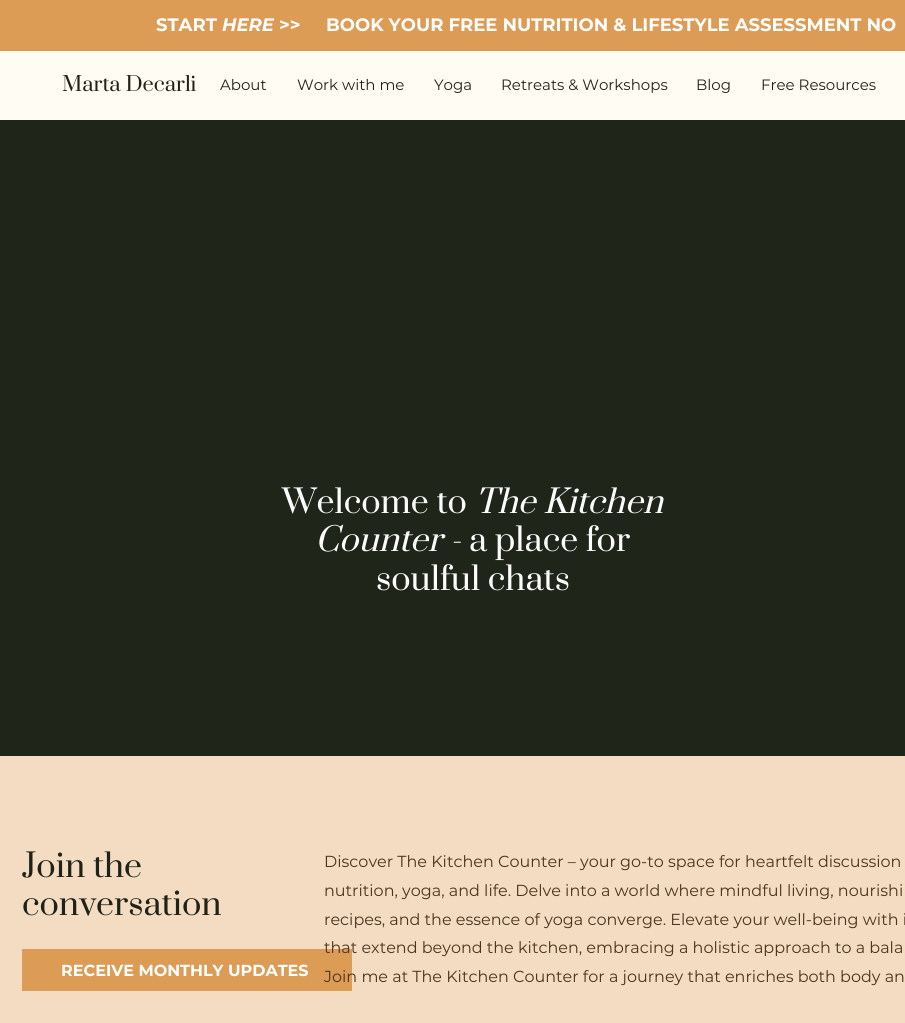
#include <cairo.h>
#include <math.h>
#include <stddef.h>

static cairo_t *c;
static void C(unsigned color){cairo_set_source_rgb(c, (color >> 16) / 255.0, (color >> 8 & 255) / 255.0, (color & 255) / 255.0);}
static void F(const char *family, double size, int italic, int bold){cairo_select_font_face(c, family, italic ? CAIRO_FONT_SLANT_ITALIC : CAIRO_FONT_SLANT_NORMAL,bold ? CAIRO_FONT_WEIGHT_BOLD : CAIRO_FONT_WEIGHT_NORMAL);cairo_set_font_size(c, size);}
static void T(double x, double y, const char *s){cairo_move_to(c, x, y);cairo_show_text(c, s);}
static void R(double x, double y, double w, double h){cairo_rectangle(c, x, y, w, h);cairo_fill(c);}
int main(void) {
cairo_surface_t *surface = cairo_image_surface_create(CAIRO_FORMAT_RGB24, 905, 1023);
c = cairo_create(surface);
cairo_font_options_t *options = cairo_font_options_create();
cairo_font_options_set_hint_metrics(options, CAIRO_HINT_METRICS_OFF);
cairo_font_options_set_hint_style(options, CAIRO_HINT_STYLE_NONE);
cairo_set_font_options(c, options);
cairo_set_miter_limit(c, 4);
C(0xdc9c56);
cairo_paint(c);
F("Montserrat",18,0,1);
C(0xffffff);
T(156,31,"START");
F("Montserrat",18,1,1);
T(222,31,"HERE");
F("Montserrat",18,0,1);
T(279,31,">>     BOOK YOUR FREE NUTRITION & LIFESTYLE ASSESSMENT NO");
C(0xfffcf4);
R(0,51,905,69);
F("Prata",20,0,0);
C(0x202218);
T(62,91,"Marta Decarli");
F("Montserrat",15,0,0);
T(220,90,"About");
T(297,90,"Work with me");
T(434,90,"Yoga");
T(501,90,"Retreats & Workshops");
T(696,90,"Blog");
T(761,90,"Free Resources");
C(0x1f2619);
R(0,120,905,636);
F("Prata",32,0,0);
C(0xffffff);
T(282,513,"Welcome to");
F("Prata",32,1,0);
T(475,513,"The Kitchen");
T(315,551,"Counter -");
F("Prata",32,0,0);
T(469,551,"a place for");
T(376,590,"soulful chats");
C(0xf3dcc2);
R(0,756,905,267);
C(0x202218);
T(22,877,"Join the");
T(22,915,"conversation");
C(0xdc9c56);
R(22,949,330,42);
F("Montserrat",16,0,1);
C(0xffffff);
T(61,976,"RECEIVE MONTHLY UPDATES");
F("Montserrat",16,0,0);
C(0x49341d);
T(324,867,"Discover The Kitchen Counter – your go-to space for heartfelt discussion");
T(324,896,"nutrition, yoga, and life. Delve into a world where mindful living, nourishi");
T(324,925,"recipes, and the essence of yoga converge. Elevate your well-being with i");
T(324,953,"that extend beyond the kitchen, embracing a holistic approach to a bala");
T(324,982,"Join me at The Kitchen Counter for a journey that enriches both body an");
cairo_surface_write_to_png(surface, "o.png");
cairo_font_options_destroy(options);
cairo_destroy(c);
cairo_surface_destroy(surface);
return 0;
}
